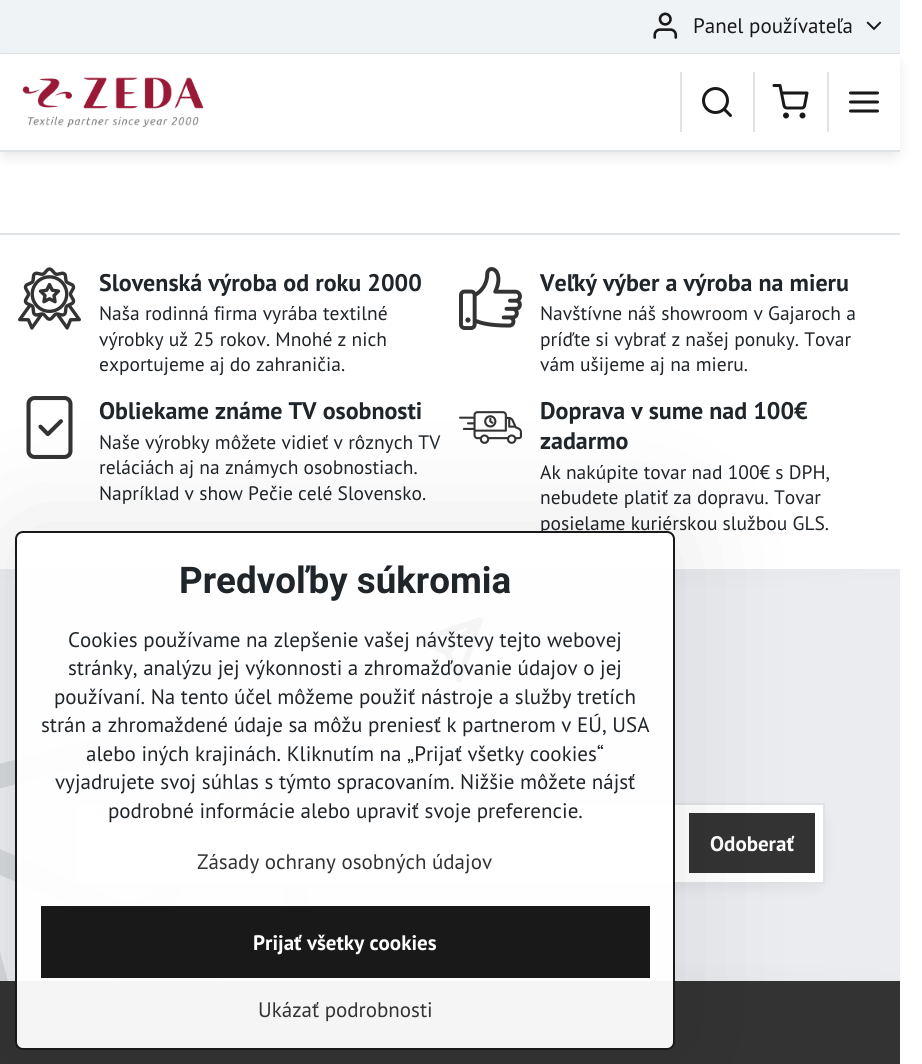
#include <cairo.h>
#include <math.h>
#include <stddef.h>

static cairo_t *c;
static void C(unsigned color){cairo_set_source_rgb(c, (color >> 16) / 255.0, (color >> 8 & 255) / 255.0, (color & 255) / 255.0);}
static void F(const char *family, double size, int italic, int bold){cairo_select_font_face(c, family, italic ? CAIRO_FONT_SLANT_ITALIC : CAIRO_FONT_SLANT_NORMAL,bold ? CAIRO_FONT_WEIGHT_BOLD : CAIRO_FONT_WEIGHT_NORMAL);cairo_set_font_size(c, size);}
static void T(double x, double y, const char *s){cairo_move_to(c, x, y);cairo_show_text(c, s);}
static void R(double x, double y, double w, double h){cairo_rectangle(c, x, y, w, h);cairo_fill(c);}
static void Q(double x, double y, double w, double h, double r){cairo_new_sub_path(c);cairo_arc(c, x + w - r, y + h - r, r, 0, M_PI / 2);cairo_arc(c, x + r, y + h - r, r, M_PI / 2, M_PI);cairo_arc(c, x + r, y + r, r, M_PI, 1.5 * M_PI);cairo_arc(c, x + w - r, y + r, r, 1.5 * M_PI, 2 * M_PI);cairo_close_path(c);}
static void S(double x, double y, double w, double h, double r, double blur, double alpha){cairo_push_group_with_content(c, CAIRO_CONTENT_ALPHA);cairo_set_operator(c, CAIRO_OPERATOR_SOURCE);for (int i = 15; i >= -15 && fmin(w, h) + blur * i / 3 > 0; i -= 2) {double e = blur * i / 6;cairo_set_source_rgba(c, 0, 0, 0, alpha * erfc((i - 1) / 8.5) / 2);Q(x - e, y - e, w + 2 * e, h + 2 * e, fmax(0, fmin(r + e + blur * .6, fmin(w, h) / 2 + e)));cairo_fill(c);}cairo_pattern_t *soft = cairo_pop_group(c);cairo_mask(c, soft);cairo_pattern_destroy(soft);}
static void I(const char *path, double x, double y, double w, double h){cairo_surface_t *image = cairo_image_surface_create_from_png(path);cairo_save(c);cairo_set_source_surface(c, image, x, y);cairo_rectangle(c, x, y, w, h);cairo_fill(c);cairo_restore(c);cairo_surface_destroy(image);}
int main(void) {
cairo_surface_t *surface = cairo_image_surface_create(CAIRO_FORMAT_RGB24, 922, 1064);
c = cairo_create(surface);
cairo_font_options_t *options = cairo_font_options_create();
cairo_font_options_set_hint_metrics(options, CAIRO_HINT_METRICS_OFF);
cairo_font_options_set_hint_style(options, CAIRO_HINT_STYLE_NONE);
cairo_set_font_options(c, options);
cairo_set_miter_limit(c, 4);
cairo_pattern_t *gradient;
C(0xffffff);
cairo_paint(c);
C(0xf0f3f6);
R(0,0,900,53);
C(0xe0e3e6);
R(0,53,900,1);
I("1.png",653,12,25,27);
F("PT Sans",21,0,0);
C(0x191919);
T(693,33,"Panel používateľa");
I("2.png",866,21,16,9);
C(0x000014);
S(6,66,888,86,0,9,.15);
C(0xffffff);
R(0,54,900,96);
C(0xe0e3e6);
R(0,150,900,2);
I("3.png",22,77,182,51);
R(680,72,2,60);
I("4.png",702,87,30,30);
R(753,72,2,60);
I("5.png",772,84,37,35);
R(827,72,2,60);
I("6.png",849,91,30,22);
R(0,233,900,2);
I("7.png",18,267,63,63);
F("PT Sans",24,0,1);
C(0x20252a);
T(99,291,"Slovenská výroba od roku 2000");
F("PT Sans",19.5,0,0);
T(99,320,"Naša rodinná firma vyrába textilné");
T(99,346,"výrobky už 25 rokov. Mnohé z nich");
T(99,371,"exportujeme aj do zahraničia.");
I("8.png",459,267,63,63);
F("PT Sans",24,0,1);
T(540,291,"Veľký výber a výroba na mieru");
F("PT Sans",19.5,0,0);
T(540,320,"Navštívne náš showroom v Gajaroch a");
T(540,346,"príďte si vybrať z našej ponuky. Tovar");
T(540,371,"vám ušijeme aj na mieru.");
I("9.png",26,396,47,63);
F("PT Sans",24,0,1);
T(99,419,"Obliekame známe TV osobnosti");
F("PT Sans",19.5,0,0);
T(99,449,"Naše výrobky môžete vidieť v rôznych TV");
T(99,474,"reláciách aj na známych osobnostiach.");
T(99,500,"Napríklad v show Pečie celé Slovensko.");
I("10.png",459,411,63,33);
F("PT Sans",24,0,1);
T(540,419,"Doprava v sume nad 100€");
T(540,449,"zadarmo");
F("PT Sans",19.5,0,0);
T(540,479,"Ak nakúpite tovar nad 100€ s DPH,");
T(540,504,"nebudete platiť za dopravu. Tovar");
T(540,530,"posielame kuriérskou službou GLS.");
C(0xeaecef);
R(0,593,900,364);
gradient = cairo_pattern_create_radial(0,0,0,0,0,1);
cairo_pattern_set_matrix(gradient, &(cairo_matrix_t){1.0 / 764, 0, 0, 1.0 / 34, -1.0 * 450 / 764, -1.0 * 981 / 34});
cairo_pattern_add_color_stop_rgba(gradient,0,0.894,0.902,0.914,1);
cairo_pattern_add_color_stop_rgba(gradient,.7,0.918,0.925,0.937,1);
cairo_set_source(c,gradient);
cairo_pattern_destroy(gradient);
R(0,957,900,24);
gradient = cairo_pattern_create_radial(0,0,0,0,0,1);
cairo_pattern_set_matrix(gradient, &(cairo_matrix_t){1.0 / 764, 0, 0, 1.0 / 34, -1.0 * 450 / 764, -1.0 * 569 / 34});
cairo_pattern_add_color_stop_rgba(gradient,0,0.894,0.902,0.914,1);
cairo_pattern_add_color_stop_rgba(gradient,.7,0.918,0.925,0.937,1);
cairo_set_source(c,gradient);
cairo_pattern_destroy(gradient);
R(0,569,900,24);
I("11.png",0,702,311,279);
C(0x20252a);
cairo_new_path(c);
cairo_move_to(c,483,620);
cairo_curve_to(c,483,618,482,617,480,617);
cairo_line_to(c,429,634);
cairo_curve_to(c,426,635,417,636,417,640);
cairo_line_to(c,418,643);
cairo_line_to(c,445,655);
cairo_line_to(c,454,676);
cairo_curve_to(c,460,689,462,681,465,671);
cairo_close_path(c);
cairo_move_to(c,446,649);
cairo_line_to(c,428,641);
cairo_line_to(c,469,627);
cairo_close_path(c);
cairo_move_to(c,473,631);
cairo_line_to(c,459,671);
cairo_line_to(c,451,653);
cairo_close_path(c);
cairo_fill(c);
C(0x000014);
S(86,819,729,60,0,10.5,.15);
C(0xffffff);
cairo_rectangle(c,76,804,748,79);
cairo_fill_preserve(c);
C(0xe0e3e6);
cairo_stroke(c);
C(0x333333);
R(689,813,126,60);
F("PT Sans",21,0,1);
C(0xffffff);
T(710,851,"Odoberať");
cairo_rectangle(c,76,906,30,29);
C(0xb8bbce);
cairo_stroke(c);
C(0x333333);
R(0,981,900,83);
cairo_save(c);
cairo_set_fill_rule(c,CAIRO_FILL_RULE_EVEN_ODD);
cairo_new_path(c);
cairo_move_to(c,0,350);
cairo_line_to(c,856,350);
cairo_line_to(c,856,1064);
cairo_line_to(c,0,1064);
cairo_close_path(c);
cairo_move_to(c,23,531);
cairo_line_to(c,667,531);
cairo_curve_to(c,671.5,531,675,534.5,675,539);
cairo_line_to(c,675,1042);
cairo_curve_to(c,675,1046.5,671.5,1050,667,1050);
cairo_line_to(c,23,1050);
cairo_curve_to(c,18.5,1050,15,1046.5,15,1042);
cairo_line_to(c,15,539);
cairo_curve_to(c,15,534.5,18.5,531,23,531);
cairo_close_path(c);
cairo_clip(c);
C(0x000000);
S(15,531,660,519,8,60,.1);
cairo_restore(c);
cairo_set_source_rgba(c,1,1,1,0.95);
Q(16,532,658,517,7);
cairo_fill_preserve(c);
C(0x191919);
cairo_stroke(c);
F("Roboto",36.75,0,1);
C(0x20252a);
T(179,593,"Predvoľby súkromia");
F("PT Sans",21,0,0);
T(68,647,"Cookies používame na zlepšenie vašej návštevy tejto webovej");
T(68,675,"stránky, analýzu jej výkonnosti a zhromažďovanie údajov o jej");
T(54,704,"používaní. Na tento účel môžeme použiť nástroje a služby tretích");
T(41,732,"strán a zhromaždené údaje sa môžu preniesť k partnerom v EÚ, USA");
T(86,761,"alebo iných krajinách. Kliknutím na „Prijať všetky cookies“");
T(55,789,"vyjadrujete svoj súhlas s týmto spracovaním. Nižšie môžete nájsť");
T(108,818,"podrobné informácie alebo upraviť svoje preferencie.");
C(0x333333);
T(197,869,"Zásady ochrany osobných údajov");
C(0x191919);
R(41,906,609,72);
F("PT Sans",21,0,1);
C(0xffffff);
T(253,950,"Prijať všetky cookies");
F("PT Sans",21,0,0);
C(0x333333);
T(258,1017,"Ukázať podrobnosti");
cairo_surface_write_to_png(surface, "o.png");
cairo_font_options_destroy(options);
cairo_destroy(c);
cairo_surface_destroy(surface);
return 0;
}
